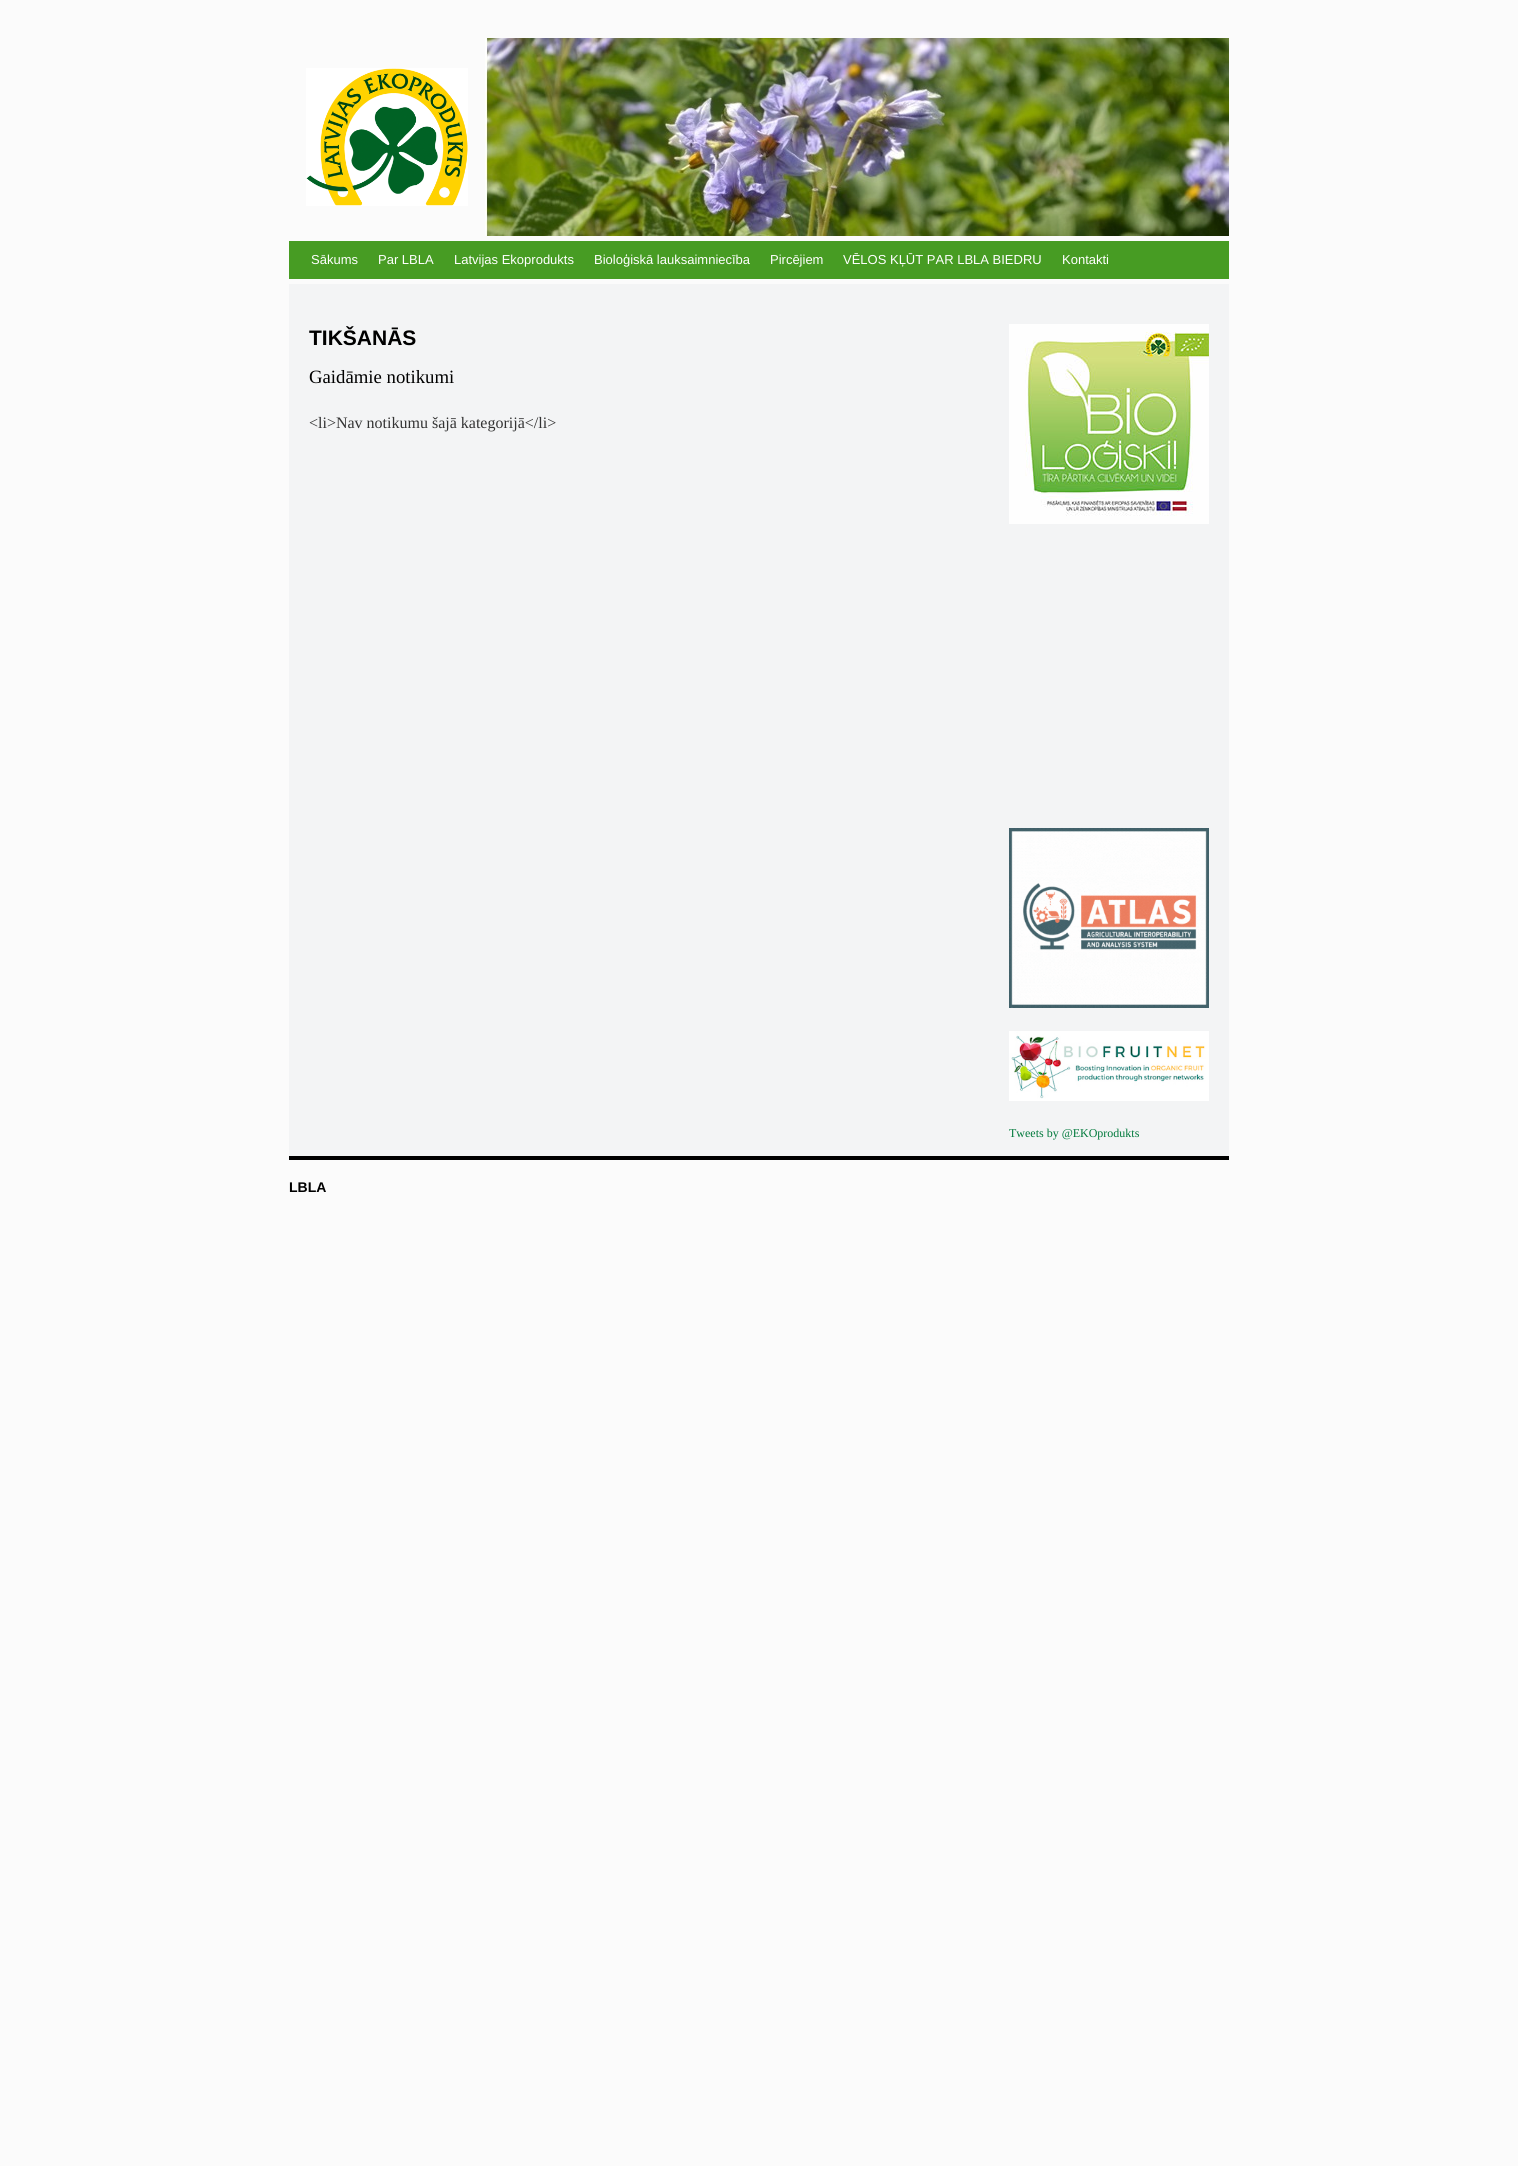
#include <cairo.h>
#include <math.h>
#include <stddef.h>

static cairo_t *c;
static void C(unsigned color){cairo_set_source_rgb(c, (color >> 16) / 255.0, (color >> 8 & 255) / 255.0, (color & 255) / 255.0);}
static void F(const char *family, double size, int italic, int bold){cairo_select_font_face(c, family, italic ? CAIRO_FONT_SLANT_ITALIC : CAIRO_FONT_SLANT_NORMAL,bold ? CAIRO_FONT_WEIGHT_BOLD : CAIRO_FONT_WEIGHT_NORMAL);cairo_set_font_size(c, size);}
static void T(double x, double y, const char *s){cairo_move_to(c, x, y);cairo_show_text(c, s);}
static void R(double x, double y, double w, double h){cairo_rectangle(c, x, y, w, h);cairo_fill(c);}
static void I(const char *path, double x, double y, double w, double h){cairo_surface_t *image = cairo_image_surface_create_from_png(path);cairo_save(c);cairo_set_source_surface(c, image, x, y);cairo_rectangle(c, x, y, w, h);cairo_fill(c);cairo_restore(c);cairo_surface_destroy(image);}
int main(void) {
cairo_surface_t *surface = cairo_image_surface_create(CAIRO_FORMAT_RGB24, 1518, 2166);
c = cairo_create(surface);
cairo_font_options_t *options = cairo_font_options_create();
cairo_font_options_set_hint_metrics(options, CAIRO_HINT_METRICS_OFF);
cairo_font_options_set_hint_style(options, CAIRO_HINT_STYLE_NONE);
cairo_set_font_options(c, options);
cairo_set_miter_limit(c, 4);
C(0xfbfbfb);
cairo_paint(c);
I("1.png",485,38,744,198);
I("2.png",306,68,162,138);
C(0x479c23);
R(289,241,940,38);
F("Liberation Sans",13,0,0);
C(0xffffff);
T(311,264,"Sākums");
T(378,264,"Par LBLA");
T(454,264,"Latvijas Ekoprodukts");
T(594,264,"Bioloģiskā lauksaimniecība");
T(770,264,"Pircējiem");
T(843,264,"VĒLOS KĻŪT PAR LBLA BIEDRU");
T(1062,264,"Kontakti");
C(0xf3f4f5);
R(289,284,940,872);
F("Liberation Sans",21,0,1);
C(0x000000);
T(309,345,"TIKŠANĀS");
F("Liberation Serif",18.75,0,0);
T(309,383,"Gaidāmie notikumi");
F("Liberation Serif",16,0,0);
C(0x333333);
T(309,428,"<li>Nav notikumu šajā kategorijā</li>");
I("3.png",1009,324,200,200);
I("4.png",1009,828,200,180);
I("5.png",1009,1031,200,70);
F("Liberation Serif",12,0,0);
C(0x00793b);
T(1009,1137,"Tweets by @EKOprodukts");
C(0x000000);
R(289,1156,940,4);
F("Liberation Sans",14,0,1);
T(289,1192,"LBLA");
cairo_surface_write_to_png(surface, "o.png");
cairo_font_options_destroy(options);
cairo_destroy(c);
cairo_surface_destroy(surface);
return 0;
}
